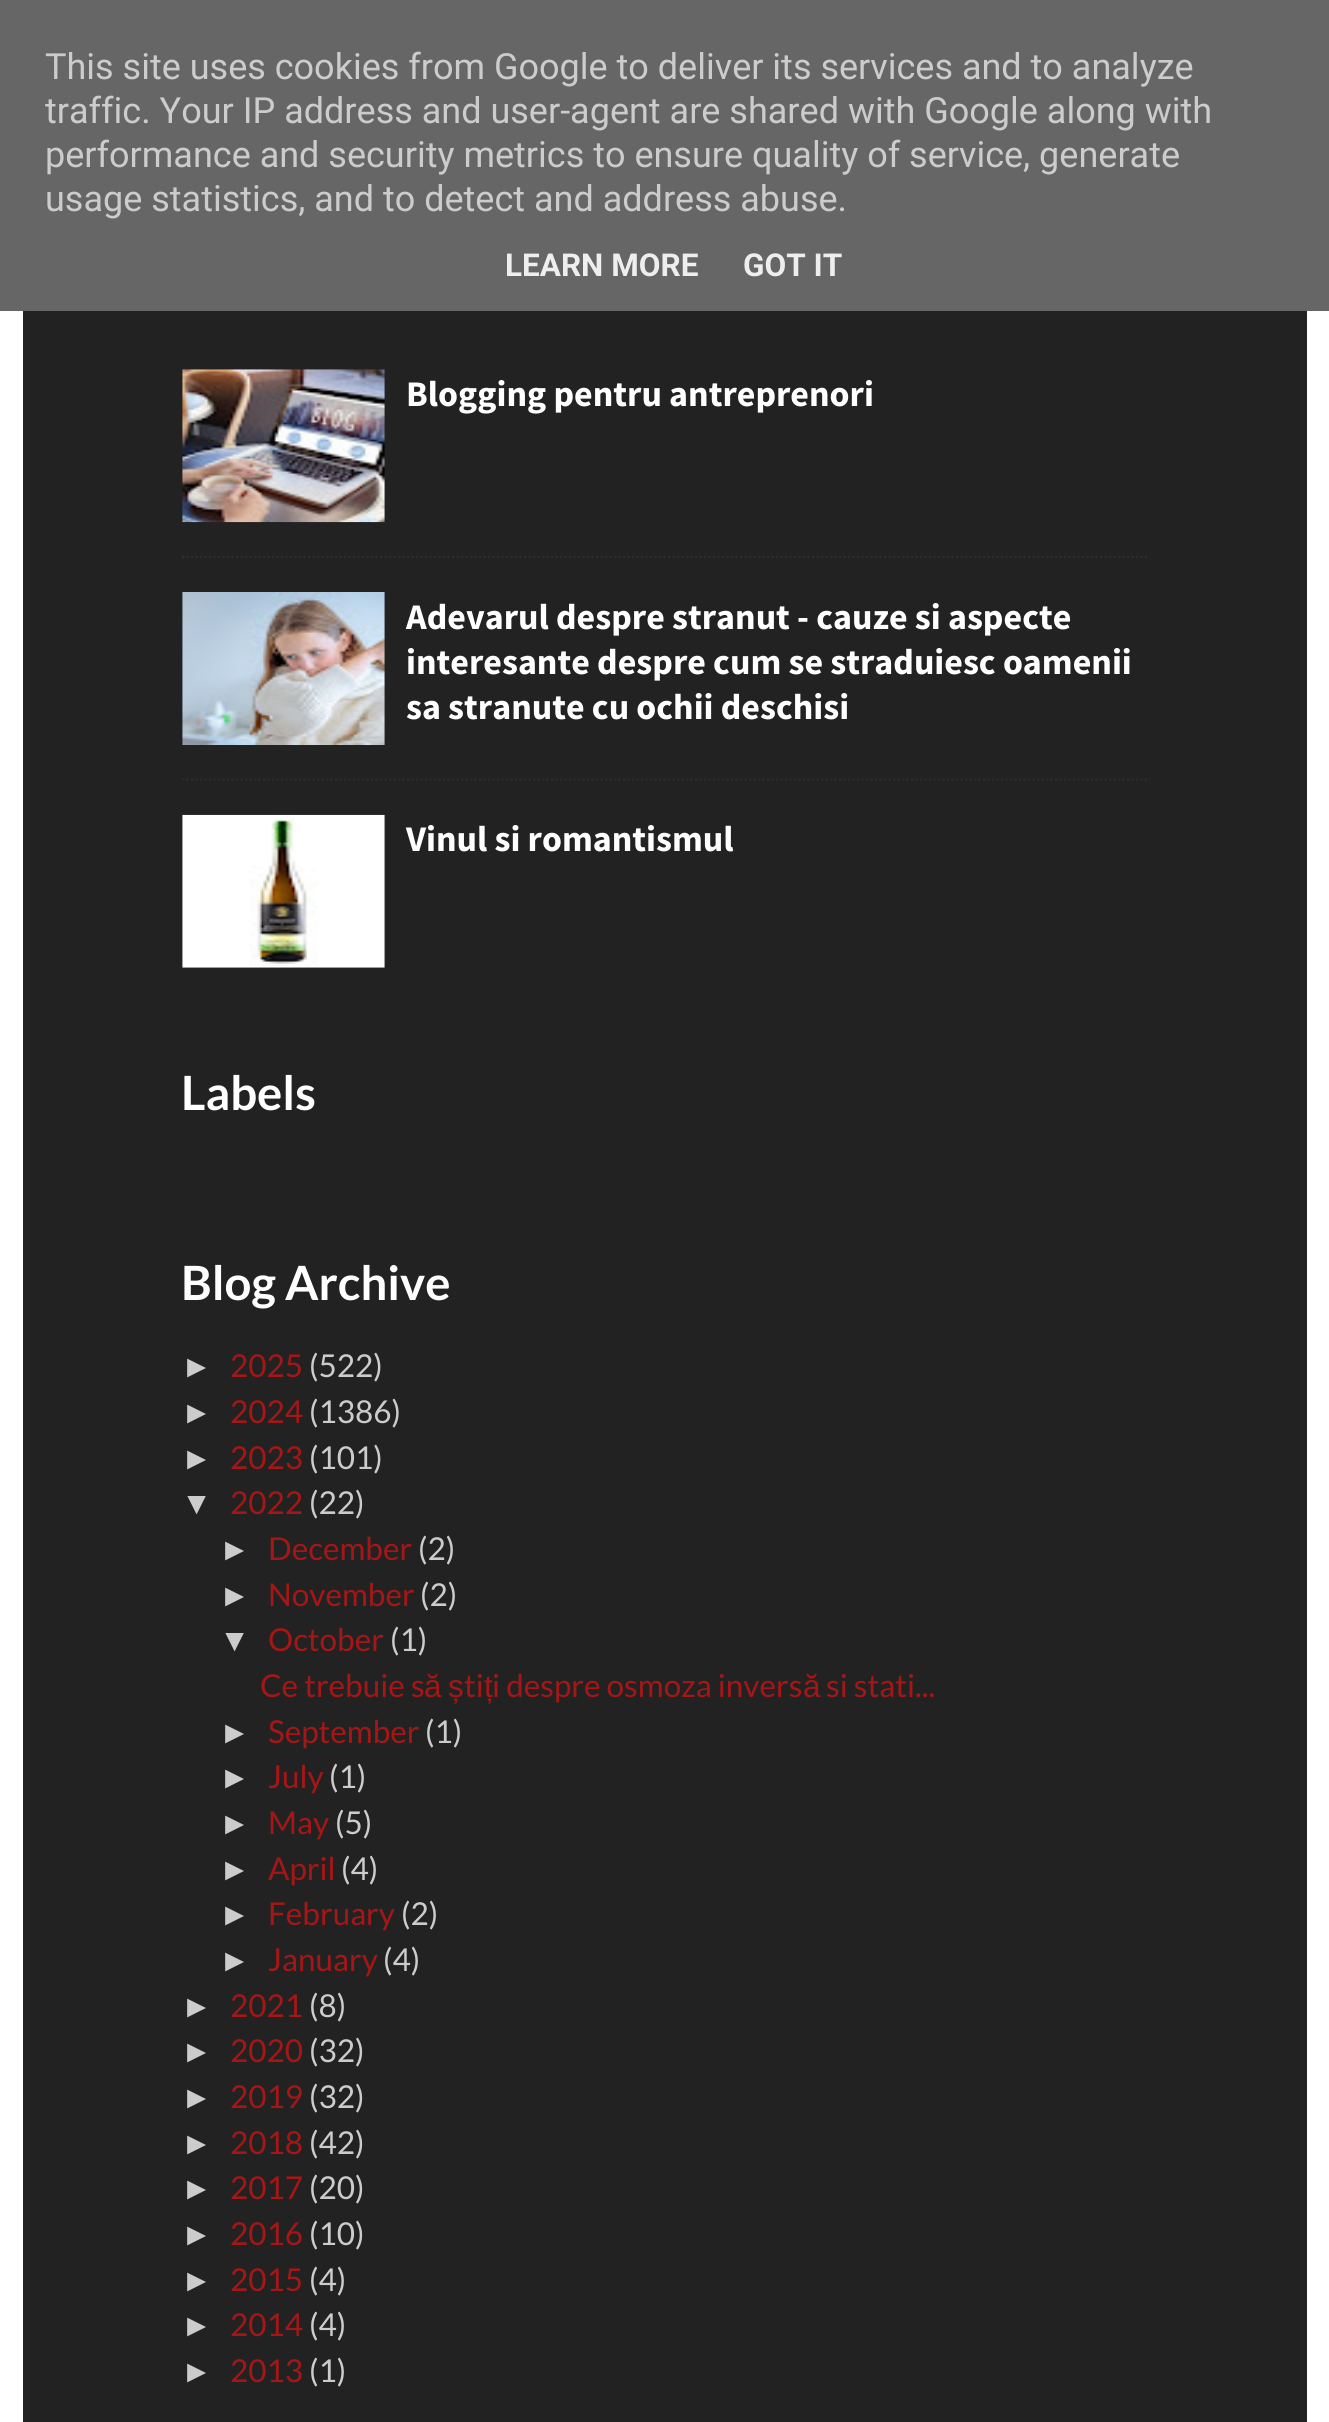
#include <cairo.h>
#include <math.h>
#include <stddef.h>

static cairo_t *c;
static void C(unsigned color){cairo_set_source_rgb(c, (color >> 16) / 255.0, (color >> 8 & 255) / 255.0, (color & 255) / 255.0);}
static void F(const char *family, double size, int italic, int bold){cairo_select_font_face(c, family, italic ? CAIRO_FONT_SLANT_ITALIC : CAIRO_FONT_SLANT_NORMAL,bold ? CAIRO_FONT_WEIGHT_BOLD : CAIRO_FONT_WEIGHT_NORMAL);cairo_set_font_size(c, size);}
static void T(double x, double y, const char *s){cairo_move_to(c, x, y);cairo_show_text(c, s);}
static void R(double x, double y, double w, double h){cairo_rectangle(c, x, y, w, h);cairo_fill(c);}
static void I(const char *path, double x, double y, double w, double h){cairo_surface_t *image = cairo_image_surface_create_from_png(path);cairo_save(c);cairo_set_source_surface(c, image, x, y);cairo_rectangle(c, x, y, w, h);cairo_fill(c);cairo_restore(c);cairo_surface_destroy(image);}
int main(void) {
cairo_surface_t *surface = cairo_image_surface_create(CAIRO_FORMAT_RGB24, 1329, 2422);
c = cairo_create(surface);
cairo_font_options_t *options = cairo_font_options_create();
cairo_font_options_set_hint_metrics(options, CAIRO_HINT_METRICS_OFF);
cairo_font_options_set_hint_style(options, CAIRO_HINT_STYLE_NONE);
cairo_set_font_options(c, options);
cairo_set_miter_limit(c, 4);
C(0xffffff);
cairo_paint(c);
C(0x666666);
R(0,0,1329,311);
F("Roboto",36,0,0);
C(0xcccccc);
T(45,79,"This site uses cookies from Google to deliver its services and to analyze");
T(45,123,"traffic. Your IP address and user-agent are shared with Google along with");
T(45,167,"performance and security metrics to ensure quality of service, generate");
T(45,211,"usage statistics, and to detect and address abuse.");
F("Roboto",31.5,0,1);
C(0xeeeeee);
T(505,276,"LEARN MORE");
T(743,276,"GOT IT");
C(0x222222);
R(23,311,1284,2111);
cairo_new_path(c);
cairo_move_to(c,182,557);
cairo_line_to(c,1150,557);
C(0x2d2d2d);
cairo_set_line_width(c,2.2);
cairo_set_dash(c,(double[]){2.25,2.25},2,0);
cairo_stroke(c);
I("1.png",182,369,203,154);
F("Source Sans Pro",36,0,1);
C(0xffffff);
T(406,406,"Blogging pentru antreprenori");
cairo_new_path(c);
cairo_move_to(c,182,779.5);
cairo_line_to(c,1150,779.5);
C(0x2d2d2d);
cairo_stroke(c);
I("2.png",182,592,203,153);
C(0xffffff);
T(406,629,"Adevarul despre stranut - cauze si aspecte");
T(406,674,"interesante despre cum se straduiesc oamenii");
T(406,719,"sa stranute cu ochii deschisi");
I("3.png",182,814,203,154);
T(406,851,"Vinul si romantismul");
F("Lato",47.25,0,1);
T(181,1110,"Labels");
T(181,1300,"Blog Archive");
F("Liberation Sans",31.5,0,0);
C(0xcccccc);
T(181,1377,"►");
F("Lato",31.5,0,0);
C(0xa51616);
T(230,1377,"2025");
C(0xcccccc);
T(309,1377,"(522)");
F("Liberation Sans",31.5,0,0);
T(181,1423,"►");
F("Lato",31.5,0,0);
C(0xa51616);
T(230,1423,"2024");
C(0xcccccc);
T(309,1423,"(1386)");
F("Liberation Sans",31.5,0,0);
T(181,1469,"►");
F("Lato",31.5,0,0);
C(0xa51616);
T(230,1469,"2023");
C(0xcccccc);
T(309,1469,"(101)");
F("Liberation Sans",31.5,0,0);
T(181,1514,"▼");
F("Lato",31.5,0,0);
C(0xa51616);
T(230,1514,"2022");
C(0xcccccc);
T(309,1514,"(22)");
F("Liberation Sans",31.5,0,0);
T(219,1560,"►");
F("Lato",31.5,0,0);
C(0xa51616);
T(268,1560,"December");
C(0xcccccc);
T(418,1560,"(2)");
F("Liberation Sans",31.5,0,0);
T(219,1606,"►");
F("Lato",31.5,0,0);
C(0xa51616);
T(268,1606,"November");
C(0xcccccc);
T(420,1606,"(2)");
F("Liberation Sans",31.5,0,0);
T(219,1651,"▼");
F("Lato",31.5,0,0);
C(0xa51616);
T(268,1651,"October");
C(0xcccccc);
T(390,1651,"(1)");
C(0xa51616);
T(260,1697,"Ce trebuie s");
F("Liberation Sans",31.5,0,0);
T(424,1697,"ă");
T(448,1697,"ș");
F("Lato",31.5,0,0);
T(464,1697,"ti");
F("Liberation Sans",31.5,0,0);
T(484,1697,"ț");
F("Lato",31.5,0,0);
T(492,1697,"i despre osmoza invers");
F("Liberation Sans",31.5,0,0);
T(803,1697,"ă");
F("Lato",31.5,0,0);
T(826,1697,"si stati...");
F("Liberation Sans",31.5,0,0);
C(0xcccccc);
T(219,1743,"►");
F("Lato",31.5,0,0);
C(0xa51616);
T(268,1743,"September");
C(0xcccccc);
T(425,1743,"(1)");
F("Liberation Sans",31.5,0,0);
T(219,1788,"►");
F("Lato",31.5,0,0);
C(0xa51616);
T(268,1788,"July");
C(0xcccccc);
T(329,1788,"(1)");
F("Liberation Sans",31.5,0,0);
T(219,1834,"►");
F("Lato",31.5,0,0);
C(0xa51616);
T(268,1834,"May");
C(0xcccccc);
T(335,1834,"(5)");
F("Liberation Sans",31.5,0,0);
T(219,1880,"►");
F("Lato",31.5,0,0);
C(0xa51616);
T(268,1880,"April");
C(0xcccccc);
T(341,1880,"(4)");
F("Liberation Sans",31.5,0,0);
T(219,1925,"►");
F("Lato",31.5,0,0);
C(0xa51616);
T(268,1925,"February");
C(0xcccccc);
T(401,1925,"(2)");
F("Liberation Sans",31.5,0,0);
T(219,1971,"►");
F("Lato",31.5,0,0);
C(0xa51616);
T(268,1971,"January");
C(0xcccccc);
T(383,1971,"(4)");
F("Liberation Sans",31.5,0,0);
T(181,2017,"►");
F("Lato",31.5,0,0);
C(0xa51616);
T(230,2017,"2021");
C(0xcccccc);
T(309,2017,"(8)");
F("Liberation Sans",31.5,0,0);
T(181,2062,"►");
F("Lato",31.5,0,0);
C(0xa51616);
T(230,2062,"2020");
C(0xcccccc);
T(309,2062,"(32)");
F("Liberation Sans",31.5,0,0);
T(181,2108,"►");
F("Lato",31.5,0,0);
C(0xa51616);
T(230,2108,"2019");
C(0xcccccc);
T(309,2108,"(32)");
F("Liberation Sans",31.5,0,0);
T(181,2154,"►");
F("Lato",31.5,0,0);
C(0xa51616);
T(230,2154,"2018");
C(0xcccccc);
T(309,2154,"(42)");
F("Liberation Sans",31.5,0,0);
T(181,2199,"►");
F("Lato",31.5,0,0);
C(0xa51616);
T(230,2199,"2017");
C(0xcccccc);
T(309,2199,"(20)");
F("Liberation Sans",31.5,0,0);
T(181,2245,"►");
F("Lato",31.5,0,0);
C(0xa51616);
T(230,2245,"2016");
C(0xcccccc);
T(309,2245,"(10)");
F("Liberation Sans",31.5,0,0);
T(181,2291,"►");
F("Lato",31.5,0,0);
C(0xa51616);
T(230,2291,"2015");
C(0xcccccc);
T(309,2291,"(4)");
F("Liberation Sans",31.5,0,0);
T(181,2336,"►");
F("Lato",31.5,0,0);
C(0xa51616);
T(230,2336,"2014");
C(0xcccccc);
T(309,2336,"(4)");
F("Liberation Sans",31.5,0,0);
T(181,2382,"►");
F("Lato",31.5,0,0);
C(0xa51616);
T(230,2382,"2013");
C(0xcccccc);
T(309,2382,"(1)");
cairo_surface_write_to_png(surface, "o.png");
cairo_font_options_destroy(options);
cairo_destroy(c);
cairo_surface_destroy(surface);
return 0;
}
